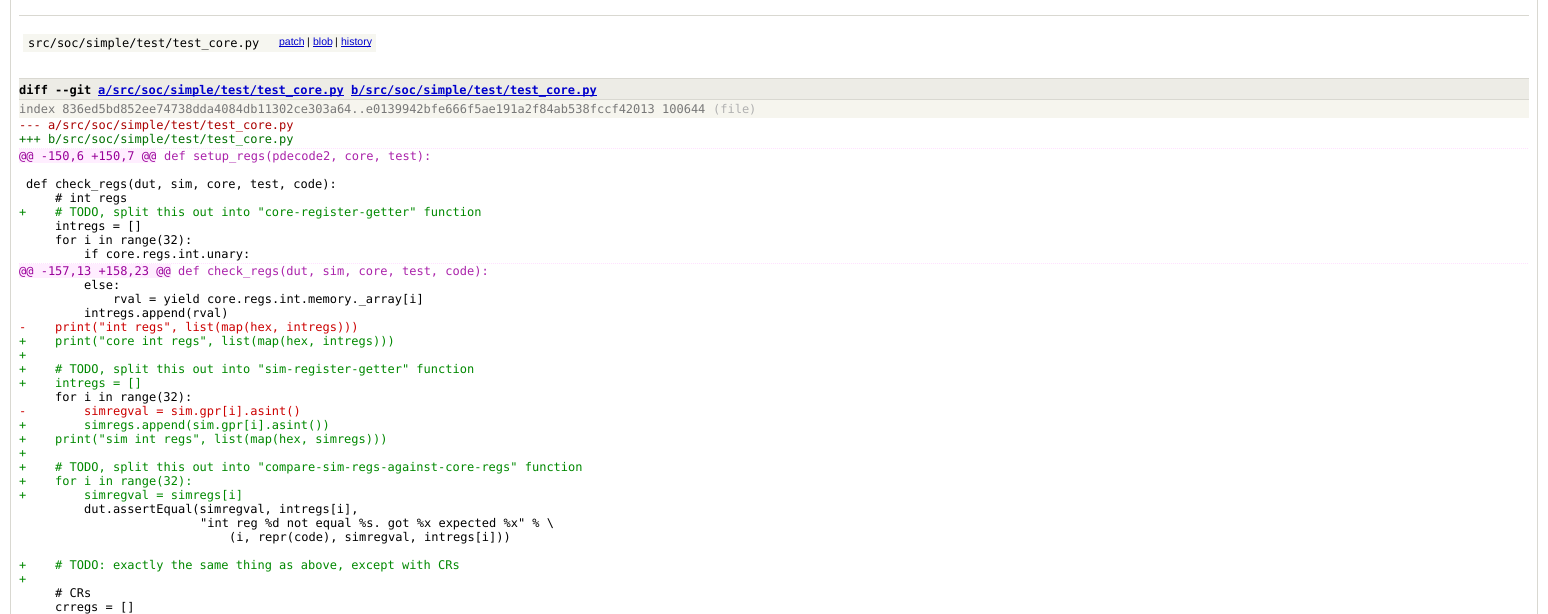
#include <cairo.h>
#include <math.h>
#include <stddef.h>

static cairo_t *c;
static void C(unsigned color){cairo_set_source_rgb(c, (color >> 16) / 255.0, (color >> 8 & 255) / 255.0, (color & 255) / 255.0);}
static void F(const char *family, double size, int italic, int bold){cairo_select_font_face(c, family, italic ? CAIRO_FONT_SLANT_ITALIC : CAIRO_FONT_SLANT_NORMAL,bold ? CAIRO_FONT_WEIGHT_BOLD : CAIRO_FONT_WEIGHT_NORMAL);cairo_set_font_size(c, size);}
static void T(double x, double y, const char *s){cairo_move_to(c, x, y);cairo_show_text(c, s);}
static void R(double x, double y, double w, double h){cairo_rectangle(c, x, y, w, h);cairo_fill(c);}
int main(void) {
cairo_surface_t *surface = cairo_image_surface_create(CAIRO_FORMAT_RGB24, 1548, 614);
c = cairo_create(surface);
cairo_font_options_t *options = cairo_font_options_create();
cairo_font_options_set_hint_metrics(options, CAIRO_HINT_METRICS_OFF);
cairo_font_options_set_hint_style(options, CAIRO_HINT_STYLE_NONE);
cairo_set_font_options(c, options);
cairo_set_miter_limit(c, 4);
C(0xffffff);
cairo_paint(c);
cairo_rectangle(c,10.5,-.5,1527,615);
C(0xd9d8d1);
cairo_set_line_width(c,1);
cairo_stroke(c);
R(19,15,1510,1);
C(0xf6f6f0);
R(23,34,353,18);
F("DejaVu Sans Mono",12,0,0);
C(0x000000);
T(28,47,"src/soc/simple/test/test_core.py");
C(0x0000cc);
R(279,46,25,1);
F("Liberation Sans",10.5,0,0);
T(279,45,"patch");
C(0x000000);
T(307,45,"|");
C(0x0000cc);
T(313,45,"blob");
R(313,46,19,1);
C(0x000000);
T(335,45,"|");
C(0x0000cc);
R(341,46,30,1);
T(341,45,"history");
C(0xedece6);
R(19,79,1510,20);
C(0xd9d8d1);
R(19,78,1510,1);
R(19,99,1510,1);
F("DejaVu Sans Mono",12,0,1);
C(0x000000);
T(19,94,"diff --git");
C(0x0000cc);
R(98,95,246,1);
T(98,94,"a/src/soc/simple/test/test_core.py");
R(351,95,246,1);
T(351,94,"b/src/soc/simple/test/test_core.py");
C(0xf6f5ee);
R(19,100,1510,18);
F("DejaVu Sans Mono",12,0,0);
C(0x777777);
T(19,113,"index 836ed5bd852ee74738dda4084db11302ce303a64..e0139942bfe666f5ae191a2f84ab538fccf42013 100644");
C(0xb0b0b0);
T(713,113,"(file)");
C(0xaa0000);
T(19,129,"--- a/src/soc/simple/test/test_core.py");
C(0x007000);
T(19,143,"+++ b/src/soc/simple/test/test_core.py");
cairo_new_path(c);
cairo_move_to(c,19,148.5);
cairo_line_to(c,1529,148.5);
C(0xffe0ff);
cairo_set_dash(c,(double[]){1,1},2,0);
cairo_stroke(c);
C(0xffeeff);
R(19,149,137,14);
C(0x990099);
T(19,160,"@@ -150,6 +150,7 @@");
C(0xaa22aa);
T(164,160,"def setup_regs(pdecode2, core, test):");
C(0x000000);
T(26,188,"def check_regs(dut, sim, core, test, code):");
T(55,202,"# int regs");
C(0x008800);
T(19,216,"+    # TODO, split this out into \"core-register-getter\" function");
C(0x000000);
T(55,230,"intregs = []");
T(55,244,"for i in range(32):");
T(84,258,"if core.regs.int.unary:");
cairo_new_path(c);
cairo_move_to(c,19,263.5);
cairo_line_to(c,1529,263.5);
C(0xffe0ff);
cairo_stroke(c);
C(0xffeeff);
R(19,264,152,14);
C(0x990099);
T(19,275,"@@ -157,13 +158,23 @@");
C(0xaa22aa);
T(178,275,"def check_regs(dut, sim, core, test, code):");
C(0x000000);
T(84,289,"else:");
T(113,303,"rval = yield core.regs.int.memory._array[i]");
T(84,317,"intregs.append(rval)");
C(0xcc0000);
T(19,331,"-    print(\"int regs\", list(map(hex, intregs)))");
C(0x008800);
T(19,345,"+    print(\"core int regs\", list(map(hex, intregs)))");
T(19,359,"+");
T(19,373,"+    # TODO, split this out into \"sim-register-getter\" function");
T(19,387,"+    intregs = []");
C(0x000000);
T(55,401,"for i in range(32):");
C(0xcc0000);
T(19,415,"-        simregval = sim.gpr[i].asint()");
C(0x008800);
T(19,429,"+        simregs.append(sim.gpr[i].asint())");
T(19,443,"+    print(\"sim int regs\", list(map(hex, simregs)))");
T(19,457,"+");
T(19,471,"+    # TODO, split this out into \"compare-sim-regs-against-core-regs\" function");
T(19,485,"+    for i in range(32):");
T(19,499,"+        simregval = simregs[i]");
C(0x000000);
T(84,513,"dut.assertEqual(simregval, intregs[i],");
T(200,527,"\"int reg %d not equal %s. got %x expected %x\" % \\");
T(229,541,"(i, repr(code), simregval, intregs[i]))");
C(0x008800);
T(19,569,"+    # TODO: exactly the same thing as above, except with CRs");
T(19,583,"+");
C(0x000000);
T(55,597,"# CRs");
T(55,611,"crregs = []");
cairo_surface_write_to_png(surface, "o.png");
cairo_font_options_destroy(options);
cairo_destroy(c);
cairo_surface_destroy(surface);
return 0;
}
